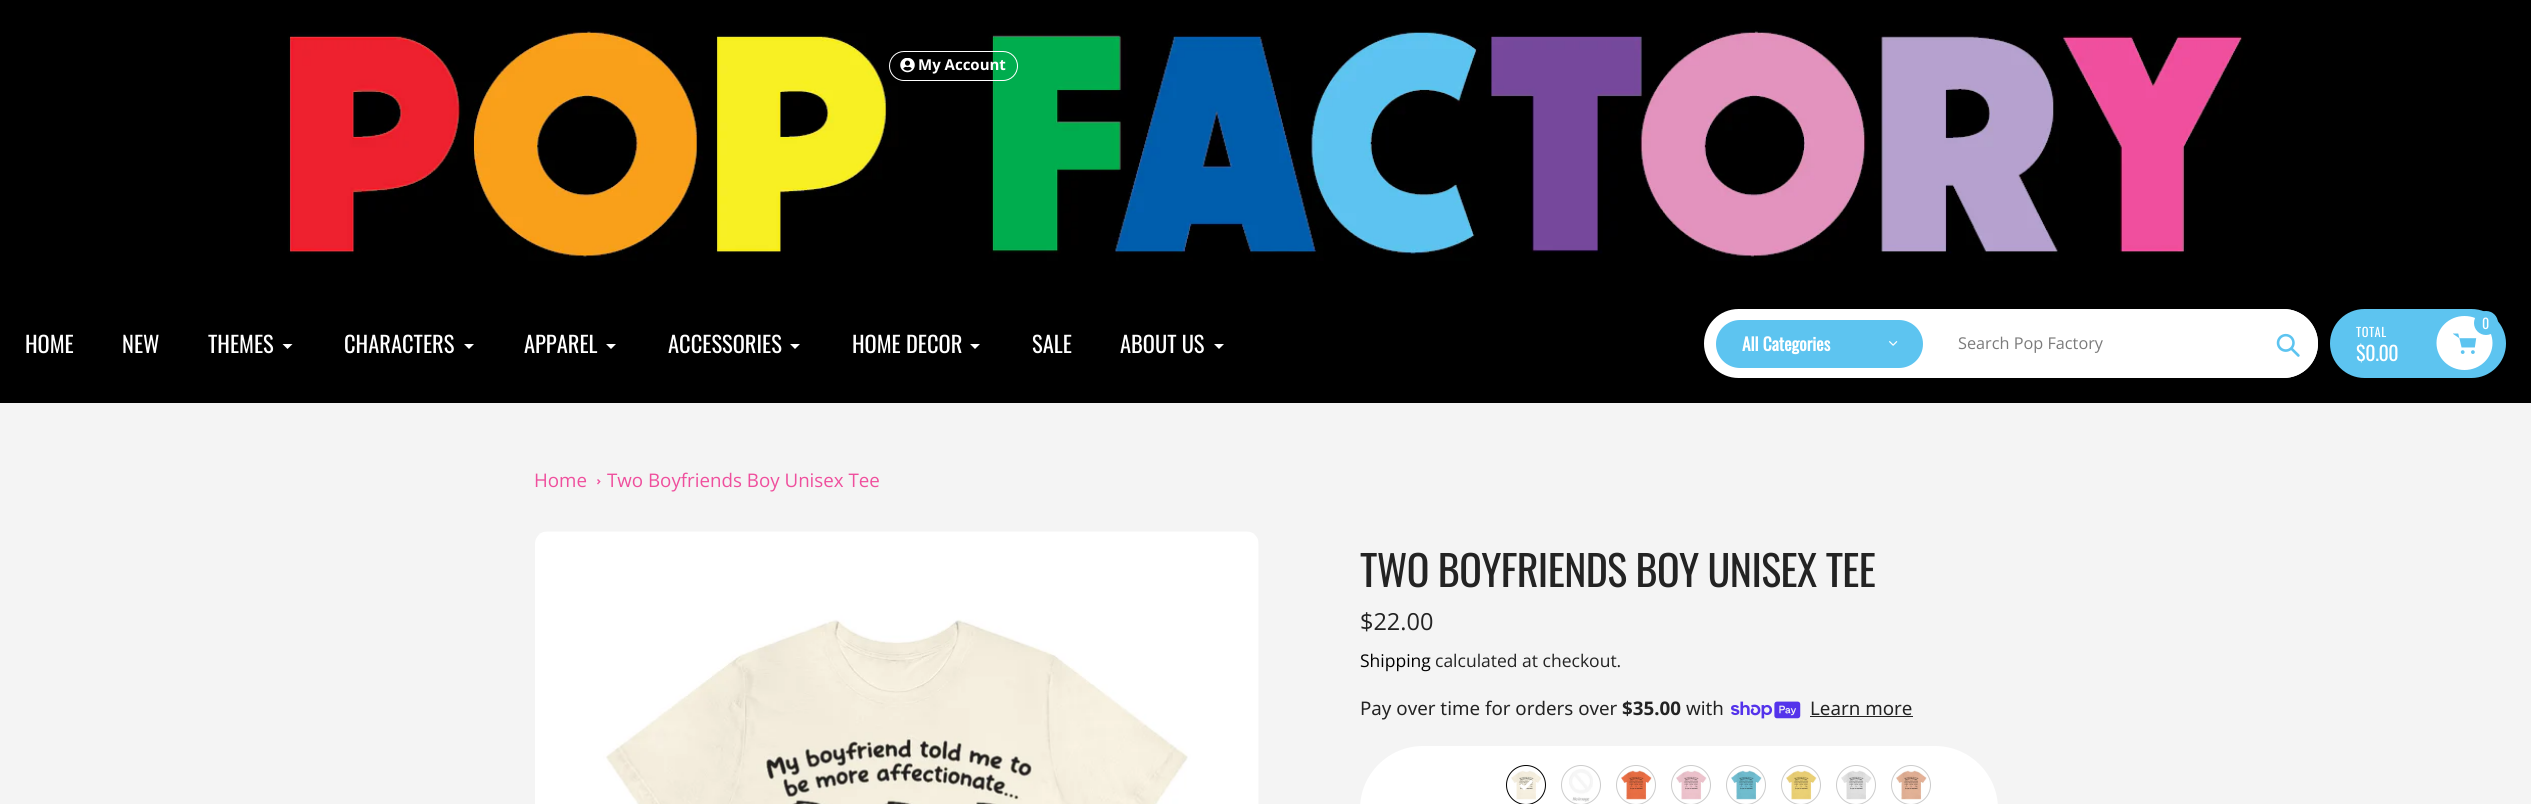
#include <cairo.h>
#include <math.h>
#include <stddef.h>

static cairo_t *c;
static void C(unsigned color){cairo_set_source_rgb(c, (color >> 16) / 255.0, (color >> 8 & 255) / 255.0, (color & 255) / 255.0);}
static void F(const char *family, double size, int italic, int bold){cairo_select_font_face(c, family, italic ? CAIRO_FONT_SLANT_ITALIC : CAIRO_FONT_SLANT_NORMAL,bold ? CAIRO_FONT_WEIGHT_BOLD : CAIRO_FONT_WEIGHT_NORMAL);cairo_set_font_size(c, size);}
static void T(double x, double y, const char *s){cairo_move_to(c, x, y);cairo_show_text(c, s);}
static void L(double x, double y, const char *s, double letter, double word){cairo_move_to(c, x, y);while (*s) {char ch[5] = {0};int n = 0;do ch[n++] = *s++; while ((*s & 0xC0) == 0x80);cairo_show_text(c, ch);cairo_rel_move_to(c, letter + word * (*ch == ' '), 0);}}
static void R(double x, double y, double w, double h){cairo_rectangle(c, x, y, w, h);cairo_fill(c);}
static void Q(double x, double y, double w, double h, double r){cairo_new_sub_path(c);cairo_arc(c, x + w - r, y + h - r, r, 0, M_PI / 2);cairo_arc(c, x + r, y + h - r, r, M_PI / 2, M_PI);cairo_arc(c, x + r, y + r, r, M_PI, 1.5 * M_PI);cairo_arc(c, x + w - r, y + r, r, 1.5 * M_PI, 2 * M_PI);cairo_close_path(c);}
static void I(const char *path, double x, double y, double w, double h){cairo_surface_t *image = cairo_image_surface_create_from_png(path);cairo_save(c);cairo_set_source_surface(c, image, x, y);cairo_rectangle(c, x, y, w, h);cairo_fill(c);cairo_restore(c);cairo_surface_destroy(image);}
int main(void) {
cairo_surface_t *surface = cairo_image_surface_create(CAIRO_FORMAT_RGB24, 2531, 804);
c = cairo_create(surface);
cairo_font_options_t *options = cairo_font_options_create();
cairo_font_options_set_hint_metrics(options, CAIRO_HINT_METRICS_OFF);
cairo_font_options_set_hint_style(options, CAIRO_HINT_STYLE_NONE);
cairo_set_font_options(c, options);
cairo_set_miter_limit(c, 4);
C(0xf4f4f4);
cairo_paint(c);
C(0x000000);
R(0,0,2531,403);
I("1.png",288,29,1959,232);
Q(889.5,51.5,128,29,14.5);
C(0xffffff);
cairo_set_line_width(c,1);
cairo_stroke(c);
I("2.png",900,58,15,15);
F("Open Sans",15,0,1);
T(918,70,"My Account");
F("Oswald",22.5,0,0);
T(25,353,"HOME");
T(122,353,"NEW");
T(208,353,"THEMES");
cairo_new_path(c);
cairo_move_to(c,292.5,344);
cairo_line_to(c,287.5,349);
cairo_line_to(c,282.5,344);
cairo_fill(c);
T(344,353,"CHARACTERS");
cairo_new_path(c);
cairo_move_to(c,474,344);
cairo_line_to(c,469,349);
cairo_line_to(c,464,344);
cairo_fill(c);
T(524,353,"APPAREL");
cairo_new_path(c);
cairo_move_to(c,616,344);
cairo_line_to(c,611,349);
cairo_line_to(c,606,344);
cairo_fill(c);
T(668,353,"ACCESSORIES");
cairo_new_path(c);
cairo_move_to(c,800,344);
cairo_line_to(c,795,349);
cairo_line_to(c,790,344);
cairo_fill(c);
T(852,353,"HOME DECOR");
cairo_new_path(c);
cairo_move_to(c,980,344);
cairo_line_to(c,975,349);
cairo_line_to(c,970,344);
cairo_fill(c);
T(1032,353,"SALE");
T(1120,353,"ABOUT US");
cairo_new_path(c);
cairo_move_to(c,1224,344);
cairo_line_to(c,1219,349);
cairo_line_to(c,1214,344);
cairo_fill(c);
Q(1704,309,614,69,34.5);
cairo_fill(c);
C(0x5dc4f0);
Q(1716,320,207,48,24);
cairo_fill(c);
F("Oswald",17.5,0,1);
C(0xffffff);
T(1742,351,"All Categories");
I("3.png",1889,341,9,5);
Q(1935,309,383,69,34.5);
cairo_fill(c);
F("Open Sans",16.25,0,0);
C(0x7b7b7b);
T(1958,349,"Search Pop Factory");
I("4.png",2276,333,24,24);
C(0x5dc4f0);
Q(2330,309,176,69,34.5);
cairo_fill(c);
C(0xffffff);
cairo_new_path(c);
cairo_move_to(c,2464.5,316);
cairo_curve_to(c,2480,316,2492.5,328,2492.5,343);
cairo_curve_to(c,2492.5,358,2480,370,2464.5,370);
cairo_curve_to(c,2449,370,2436.5,358,2436.5,343);
cairo_curve_to(c,2436.5,328,2449,316,2464.5,316);
cairo_close_path(c);
cairo_fill(c);
I("5.png",2453,333,24,21);
C(0x5dc4f0);
cairo_arc(c,2486,323,12,0,2 * M_PI);
cairo_fill(c);
F("Oswald",14,0,0);
C(0xffffff);
T(2482,329,"0");
F("Oswald",12.5,0,0);
L(2356,337,"TOTAL",.5,0);
F("Oswald",20,0,0);
L(2356,361,"$0.00",-.5,0);
F("Open Sans",18.75,0,0);
C(0xef4f9d);
T(534,487,"Home");
cairo_new_path(c);
cairo_move_to(c,598,479);
cairo_line_to(c,600.5,481.5);
cairo_line_to(c,599.5,482.5);
cairo_line_to(c,597,480);
cairo_close_path(c);
cairo_fill(c);
cairo_new_path(c);
cairo_move_to(c,599.5,481);
cairo_line_to(c,600.5,481.5);
cairo_line_to(c,598,484.5);
cairo_line_to(c,597,483.5);
cairo_close_path(c);
cairo_fill(c);
T(607,487,"Two Boyfriends Boy Unisex Tee");
I("6.png",535,531,724,273);
F("Oswald",42,0,0);
C(0x232323);
L(1360,587,"TWO BOYFRIENDS BOY UNISEX TEE",-.6,0);
F("Open Sans",23.5,0,0);
T(1360,630,"$22.00");
F("Open Sans",17.5,0,0);
C(0x000000);
T(1360,667,"Shipping");
C(0x232323);
T(1435,667,"calculated at checkout.");
F("Noto Sans",18.75,0,0);
T(1360,715,"Pay over time for orders over");
F("Noto Sans",18.75,0,1);
T(1622,715,"$35.00");
F("Noto Sans",18.75,0,0);
T(1686,715,"with");
I("7.png",1731,701,70,18);
T(1810,715,"Learn more");
R(1810,716,103,1);
C(0xffffff);
Q(1360,746,638,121,63);
cairo_fill(c);
I("8.png",1511,770,31,30);
cairo_arc(c,1526,785,19.5,0,2 * M_PI);
C(0x000000);
cairo_stroke(c);
I("9.png",1519,779,14,12);
I("10.png",1569,769,24,33);
cairo_arc(c,1581,785,19.5,0,2 * M_PI);
C(0xcccccc);
cairo_stroke(c);
I("11.png",1621,770,32,30);
cairo_arc(c,1636,785,19.5,0,2 * M_PI);
cairo_stroke(c);
I("12.png",1676,770,31,30);
cairo_arc(c,1691,785,19.5,0,2 * M_PI);
cairo_stroke(c);
I("13.png",1731,770,32,30);
cairo_arc(c,1746,785,19.5,0,2 * M_PI);
cairo_stroke(c);
I("14.png",1786,770,32,30);
cairo_arc(c,1801,785,19.5,0,2 * M_PI);
cairo_stroke(c);
I("15.png",1841,770,31,30);
cairo_arc(c,1856,785,19.5,0,2 * M_PI);
cairo_stroke(c);
I("16.png",1896,770,31,30);
cairo_arc(c,1911,785,19.5,0,2 * M_PI);
cairo_stroke(c);
cairo_surface_write_to_png(surface, "o.png");
cairo_font_options_destroy(options);
cairo_destroy(c);
cairo_surface_destroy(surface);
return 0;
}
